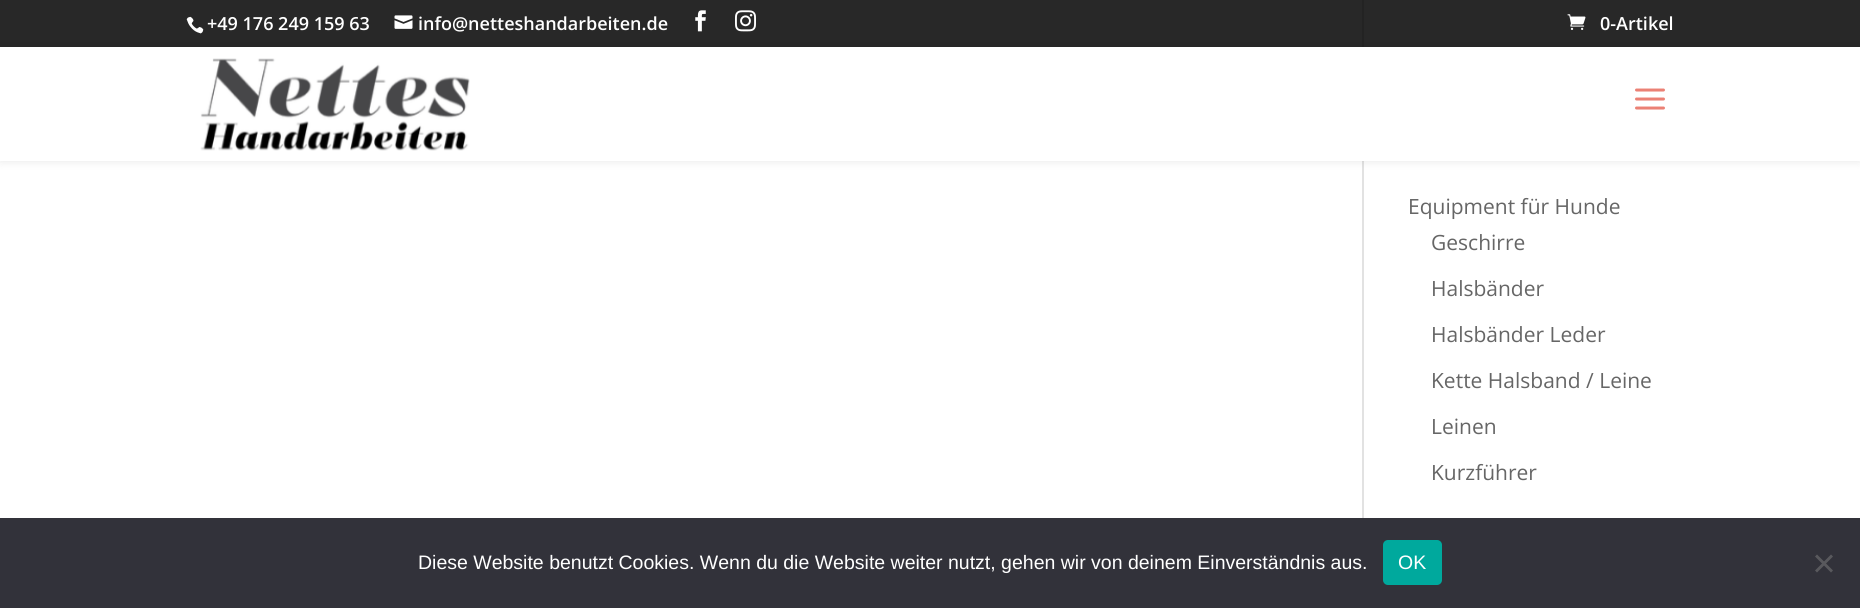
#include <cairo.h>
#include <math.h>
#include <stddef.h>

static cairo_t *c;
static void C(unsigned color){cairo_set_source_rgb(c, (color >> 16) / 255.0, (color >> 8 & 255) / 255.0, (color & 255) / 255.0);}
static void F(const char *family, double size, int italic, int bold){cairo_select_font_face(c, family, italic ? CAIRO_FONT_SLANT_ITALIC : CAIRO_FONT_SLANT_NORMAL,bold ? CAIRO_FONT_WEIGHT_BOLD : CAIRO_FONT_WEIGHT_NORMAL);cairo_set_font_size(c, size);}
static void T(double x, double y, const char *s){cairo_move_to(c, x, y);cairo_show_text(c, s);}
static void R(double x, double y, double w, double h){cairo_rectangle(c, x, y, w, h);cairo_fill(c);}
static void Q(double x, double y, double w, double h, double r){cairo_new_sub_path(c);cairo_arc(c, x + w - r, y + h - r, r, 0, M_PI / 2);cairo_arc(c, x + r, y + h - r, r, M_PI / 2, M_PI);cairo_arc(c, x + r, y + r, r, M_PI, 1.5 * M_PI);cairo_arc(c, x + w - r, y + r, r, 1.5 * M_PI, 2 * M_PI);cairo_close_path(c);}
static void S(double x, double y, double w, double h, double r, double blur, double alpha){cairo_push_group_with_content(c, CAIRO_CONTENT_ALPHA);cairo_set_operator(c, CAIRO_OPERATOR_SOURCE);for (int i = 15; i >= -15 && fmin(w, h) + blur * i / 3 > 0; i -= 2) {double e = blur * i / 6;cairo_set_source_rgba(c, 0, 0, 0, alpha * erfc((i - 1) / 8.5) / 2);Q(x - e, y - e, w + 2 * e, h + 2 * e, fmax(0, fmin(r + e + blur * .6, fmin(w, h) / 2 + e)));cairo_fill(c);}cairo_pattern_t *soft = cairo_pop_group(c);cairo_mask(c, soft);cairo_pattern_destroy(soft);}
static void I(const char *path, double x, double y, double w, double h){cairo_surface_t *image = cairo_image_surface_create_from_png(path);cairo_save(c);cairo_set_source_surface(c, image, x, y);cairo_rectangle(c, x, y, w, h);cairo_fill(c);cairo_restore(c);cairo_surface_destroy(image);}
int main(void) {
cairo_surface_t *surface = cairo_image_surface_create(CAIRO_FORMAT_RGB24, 1860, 608);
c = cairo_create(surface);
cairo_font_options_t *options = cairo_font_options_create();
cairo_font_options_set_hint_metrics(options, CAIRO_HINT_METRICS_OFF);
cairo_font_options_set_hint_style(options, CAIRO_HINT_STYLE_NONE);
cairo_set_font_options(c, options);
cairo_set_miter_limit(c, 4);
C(0xffffff);
cairo_paint(c);
C(0xe2e2e2);
R(1362,0,2,518);
C(0x000000);
S(0,47,1860,114,0,5,.1);
cairo_set_source_rgba(c,0,0,0,0.84);
R(0,0,1860,47);
I("1.png",186,16,18,18);
F("Open Sans SemiBold",18,0,0);
C(0xffffff);
T(207,30,"+49 176 249 159 63");
I("2.png",394,15,19,14);
T(418,30,"info@netteshandarbeiten.de");
I("3.png",695,10,11,22);
I("4.png",735,10,21,22);
I("5.png",1567,14,19,16);
T(1600,30,"0-Artikel");
R(0,47,1860,114);
I("6.png",200,58,270,93);
I("7.png",1635,88,30,22);
F("Open Sans",21,0,0);
C(0x666666);
T(1408,214,"Equipment für Hunde");
T(1431,250,"Geschirre");
T(1431,296,"Halsbänder");
T(1431,342,"Halsbänder Leder");
T(1431,388,"Kette Halsband / Leine");
T(1431,434,"Leinen");
T(1431,480,"Kurzführer");
C(0x32323a);
R(0,518,1860,90);
F("Liberation Sans",19.5,0,0);
C(0xffffff);
T(418,569,"Diese Website benutzt Cookies. Wenn du die Website weiter nutzt, gehen wir von deinem Einverständnis aus.");
C(0x00a99d);
Q(1383,540,59,45,5);
cairo_fill(c);
C(0xffffff);
T(1398,569,"OK");
C(0x59595d);
cairo_new_path(c);
cairo_move_to(c,1831,554.5);
cairo_line_to(c,1833,556.5);
cairo_line_to(c,1817,572.5);
cairo_line_to(c,1815,570.5);
cairo_close_path(c);
cairo_fill(c);
cairo_new_path(c);
cairo_move_to(c,1815,556.5);
cairo_line_to(c,1817,554.5);
cairo_line_to(c,1833,570.5);
cairo_line_to(c,1831,572.5);
cairo_close_path(c);
cairo_fill(c);
cairo_surface_write_to_png(surface, "o.png");
cairo_font_options_destroy(options);
cairo_destroy(c);
cairo_surface_destroy(surface);
return 0;
}
